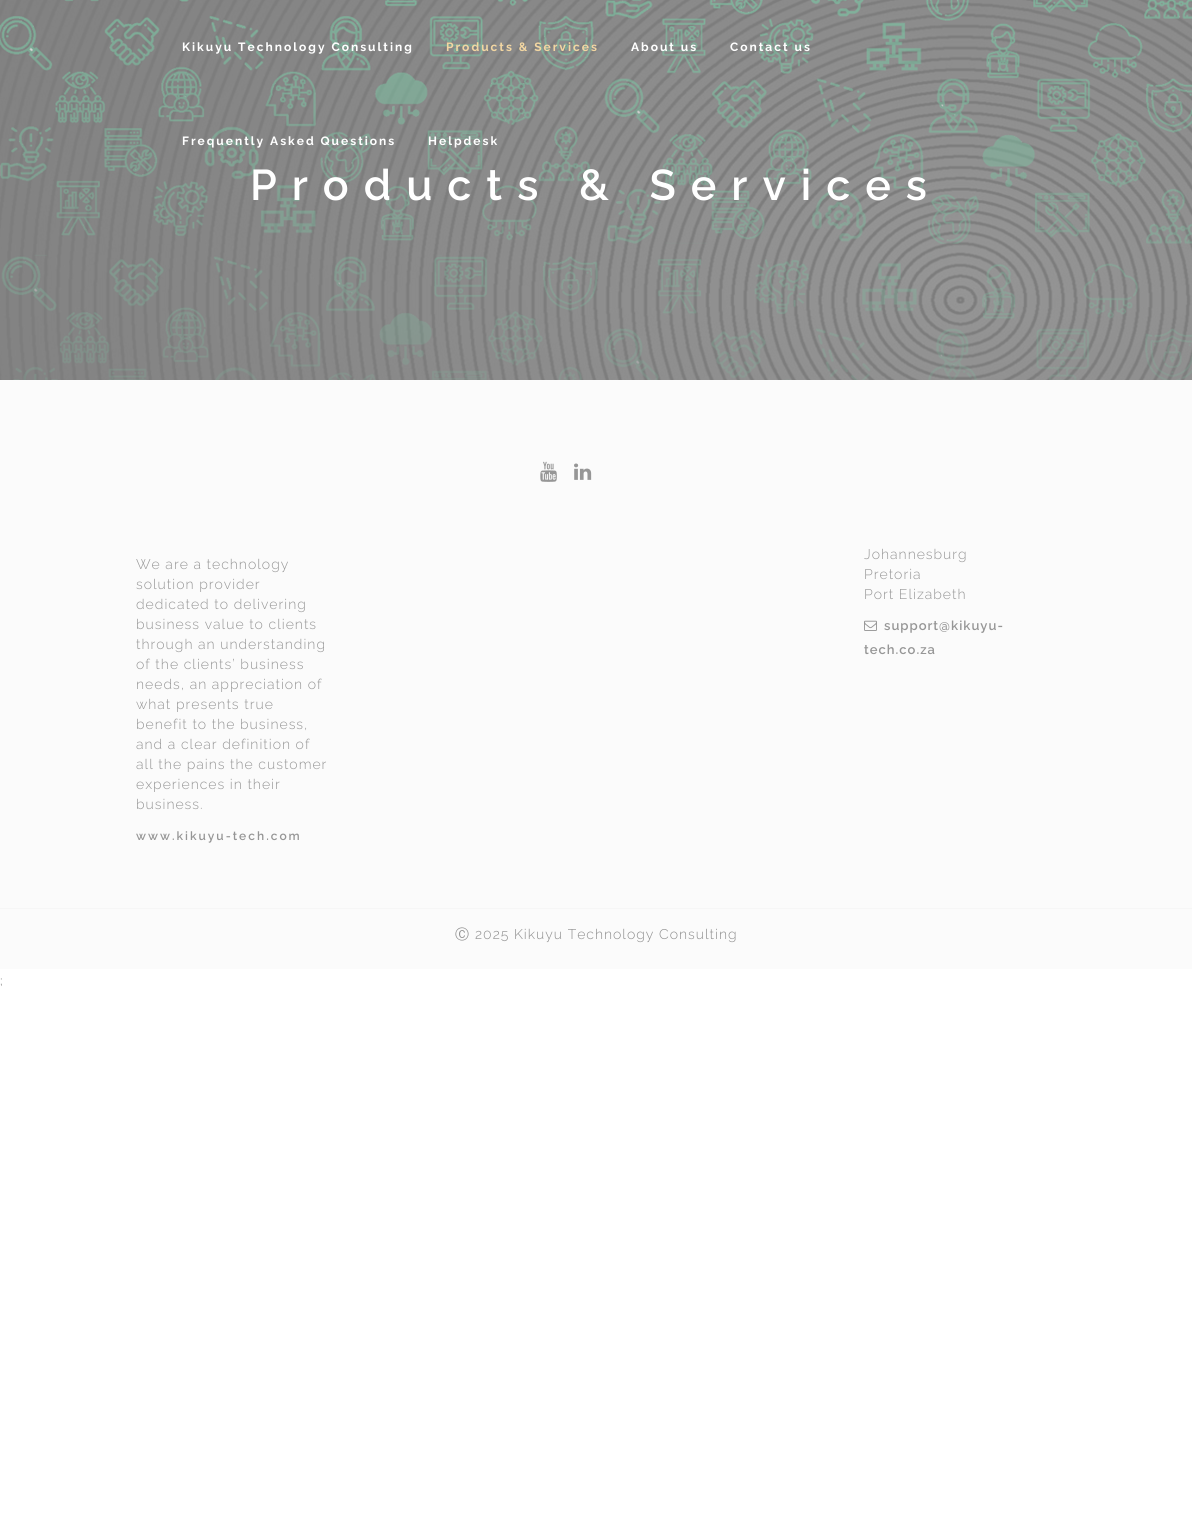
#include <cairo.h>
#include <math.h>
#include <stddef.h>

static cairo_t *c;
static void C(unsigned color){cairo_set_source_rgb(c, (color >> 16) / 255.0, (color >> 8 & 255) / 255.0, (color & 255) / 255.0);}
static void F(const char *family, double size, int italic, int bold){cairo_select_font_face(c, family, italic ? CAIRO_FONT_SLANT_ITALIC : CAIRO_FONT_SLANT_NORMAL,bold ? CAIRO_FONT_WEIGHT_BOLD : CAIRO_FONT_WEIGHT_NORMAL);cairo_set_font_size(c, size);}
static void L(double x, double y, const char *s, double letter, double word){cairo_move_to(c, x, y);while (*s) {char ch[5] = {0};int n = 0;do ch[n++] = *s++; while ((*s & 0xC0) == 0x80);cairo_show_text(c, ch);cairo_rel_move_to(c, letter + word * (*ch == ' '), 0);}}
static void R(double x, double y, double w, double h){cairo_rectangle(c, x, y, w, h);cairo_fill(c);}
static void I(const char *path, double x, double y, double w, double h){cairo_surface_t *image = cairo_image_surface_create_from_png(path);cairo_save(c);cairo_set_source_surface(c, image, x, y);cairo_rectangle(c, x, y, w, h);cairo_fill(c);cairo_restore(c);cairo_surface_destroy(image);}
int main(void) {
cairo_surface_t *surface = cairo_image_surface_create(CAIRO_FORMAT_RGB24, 1192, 1527);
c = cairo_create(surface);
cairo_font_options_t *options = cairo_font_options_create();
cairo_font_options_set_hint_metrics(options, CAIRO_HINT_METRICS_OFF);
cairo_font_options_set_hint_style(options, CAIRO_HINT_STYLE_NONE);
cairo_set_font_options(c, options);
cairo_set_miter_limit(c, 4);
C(0xffffff);
cairo_paint(c);
I("1.png",0,0,1192,380);
F("Raleway",12,0,1);
C(0xffffff);
L(182,51,"Kikuyu Technology Consulting",2,0);
C(0xf2d6a2);
L(446,51,"Products & Services",2,0);
C(0xffffff);
L(631,51,"About us",2,0);
L(730,51,"Contact us",2,0);
L(182,145,"Frequently Asked Questions",2,0);
L(428,145,"Helpdesk",2,0);
F("Raleway SemiBold",43,0,0);
L(250,200,"Products & Services",15,0);
C(0xfbfbfb);
R(0,380,1192,589);
I("2.png",540,461,17,21);
I("3.png",574,463,18,17);
F("Raleway Light",14,0,0);
C(0x969696);
L(136,569,"We are a technology",1,0);
L(136,589,"solution provider",1,0);
L(136,609,"dedicated to delivering",1,0);
L(136,629,"business value to clients",1,0);
L(136,649,"through an understanding",1,0);
L(136,669,"of the clients’ business",1,0);
L(136,689,"needs, an appreciation of",1,0);
L(136,709,"what presents true",1,0);
L(136,729,"benefit to the business,",1,0);
L(136,749,"and a clear definition of",1,0);
L(136,769,"all the pains the customer",1,0);
L(136,789,"experiences in their",1,0);
L(136,809,"business.",1,0);
F("Raleway SemiBold",12,0,0);
L(136,840,"www.kikuyu-tech.com",2,0);
F("Raleway Light",14,0,0);
L(864,559,"Johannesburg",1,0);
L(864,579,"Pretoria",1,0);
L(864,599,"Port Elizabeth",1,0);
I("4.png",864,620,13,11);
F("Raleway SemiBold",13,0,0);
L(884,630,"support@kikuyu-",1,0);
L(864,654,"tech.co.za",1,0);
C(0xf6f6f6);
R(0,908,1192,1);
F("WenQuanYi Zen Hei Medium",14,0,0);
C(0x8e8e8e);
L(455,939,"Ⓒ",1,0);
F("Raleway Light",14,0,0);
L(475,939,"2025 Kikuyu Technology Consulting",1,0);
F("Raleway",13,0,0);
C(0x969696);
L(0,985,";",1,0);
cairo_surface_write_to_png(surface, "o.png");
cairo_font_options_destroy(options);
cairo_destroy(c);
cairo_surface_destroy(surface);
return 0;
}
